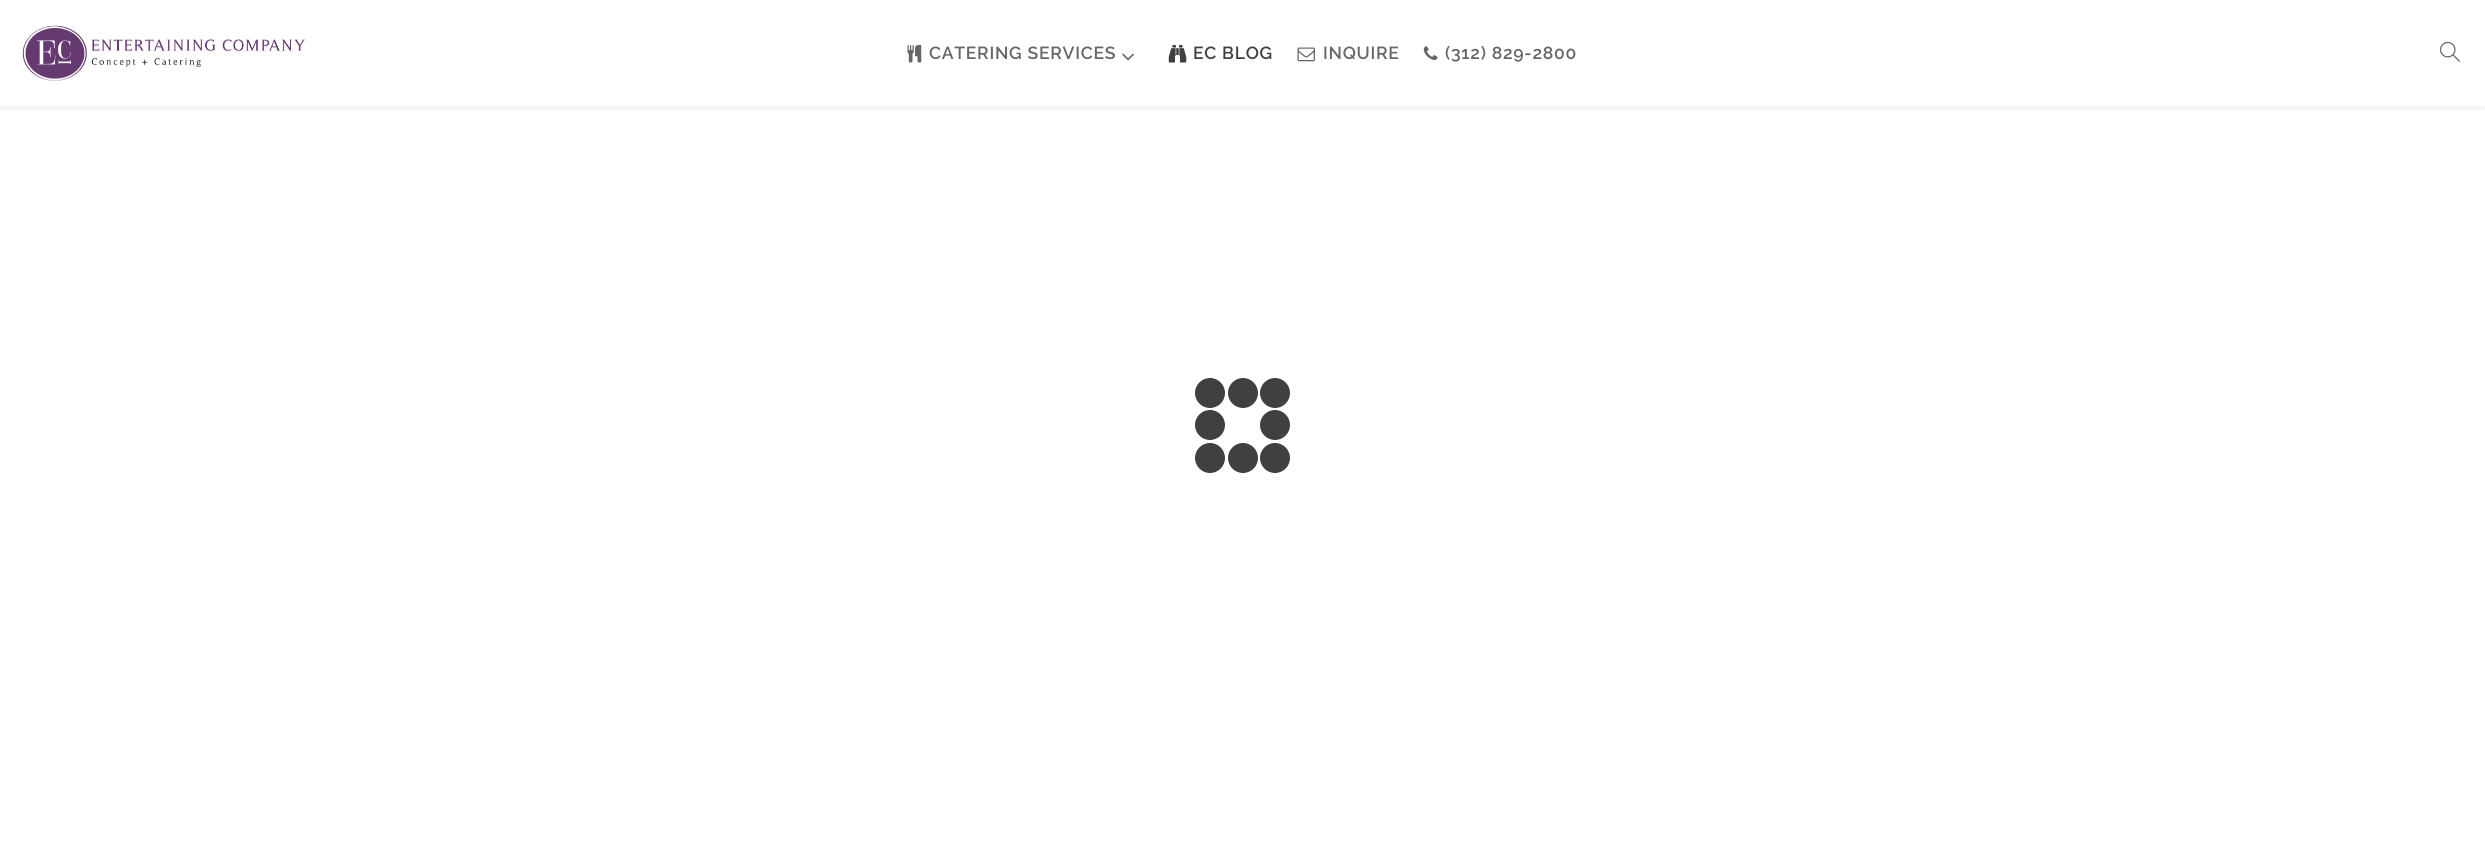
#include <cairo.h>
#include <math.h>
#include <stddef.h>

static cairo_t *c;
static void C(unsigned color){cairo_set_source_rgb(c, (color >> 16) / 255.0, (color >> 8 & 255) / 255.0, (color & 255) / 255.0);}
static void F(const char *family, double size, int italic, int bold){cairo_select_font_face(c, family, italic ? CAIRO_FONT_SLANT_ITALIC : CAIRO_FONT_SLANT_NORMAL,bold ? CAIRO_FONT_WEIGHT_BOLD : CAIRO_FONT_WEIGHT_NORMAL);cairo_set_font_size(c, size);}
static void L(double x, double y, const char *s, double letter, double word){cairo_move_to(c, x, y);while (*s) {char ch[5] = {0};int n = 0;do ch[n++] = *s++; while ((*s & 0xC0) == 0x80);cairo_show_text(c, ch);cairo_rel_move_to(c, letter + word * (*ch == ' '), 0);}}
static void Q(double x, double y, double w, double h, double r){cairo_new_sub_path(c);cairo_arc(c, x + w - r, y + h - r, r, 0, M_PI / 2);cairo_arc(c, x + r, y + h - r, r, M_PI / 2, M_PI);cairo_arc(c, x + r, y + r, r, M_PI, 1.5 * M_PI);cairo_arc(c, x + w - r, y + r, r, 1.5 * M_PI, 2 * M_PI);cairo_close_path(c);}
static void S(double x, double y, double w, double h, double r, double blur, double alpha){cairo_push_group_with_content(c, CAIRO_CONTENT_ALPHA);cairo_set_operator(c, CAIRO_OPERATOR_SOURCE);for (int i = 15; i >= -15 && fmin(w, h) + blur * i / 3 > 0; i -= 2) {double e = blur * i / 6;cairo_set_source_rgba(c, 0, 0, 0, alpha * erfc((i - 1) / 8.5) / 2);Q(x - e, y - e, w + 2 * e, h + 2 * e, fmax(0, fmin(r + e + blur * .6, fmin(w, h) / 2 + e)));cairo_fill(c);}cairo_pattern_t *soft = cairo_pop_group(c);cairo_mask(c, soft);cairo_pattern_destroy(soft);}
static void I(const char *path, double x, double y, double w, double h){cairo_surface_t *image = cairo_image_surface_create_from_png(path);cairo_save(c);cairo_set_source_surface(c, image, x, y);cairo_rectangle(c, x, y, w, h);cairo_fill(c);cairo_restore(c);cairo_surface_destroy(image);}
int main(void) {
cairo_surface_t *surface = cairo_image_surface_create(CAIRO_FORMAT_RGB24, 2485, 859);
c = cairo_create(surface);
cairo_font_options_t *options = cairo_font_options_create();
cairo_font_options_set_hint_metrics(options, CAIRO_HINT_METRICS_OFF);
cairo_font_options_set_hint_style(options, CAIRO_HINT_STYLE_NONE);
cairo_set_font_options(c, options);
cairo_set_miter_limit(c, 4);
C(0xffffff);
cairo_paint(c);
cairo_save(c);
cairo_rectangle(c,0,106,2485,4);
cairo_clip(c);
C(0x000000);
S(0,4,2485,106,0,2,.05);
cairo_restore(c);
I("1.png",22,25,283,56);
I("2.png",907,45,15,18);
F("Raleway SemiBold",17.5,0,0);
C(0x666666);
L(929,59,"CATERING SERVICES",.75,0);
I("3.png",1122,53,12,8);
I("4.png",1168,45,19,18);
C(0x404041);
L(1193,59,"EC BLOG",.75,0);
I("5.png",1297,47,18,15);
C(0x666666);
L(1323,59,"INQUIRE",.75,0);
I("6.png",1423,46,15,14);
L(1445,59,"(312) 829-2800",.75,0);
I("7.png",2439,41,21,21);
C(0x404041);
cairo_arc(c,1210,393,15,0,2 * M_PI);
cairo_fill(c);
cairo_arc(c,1243,393,15,0,2 * M_PI);
cairo_fill(c);
cairo_arc(c,1275,393,15,0,2 * M_PI);
cairo_fill(c);
cairo_arc(c,1210,425,15,0,2 * M_PI);
cairo_fill(c);
cairo_arc(c,1275,425,15,0,2 * M_PI);
cairo_fill(c);
cairo_arc(c,1210,458,15,0,2 * M_PI);
cairo_fill(c);
cairo_arc(c,1243,458,15,0,2 * M_PI);
cairo_fill(c);
cairo_arc(c,1275,458,15,0,2 * M_PI);
cairo_fill(c);
cairo_surface_write_to_png(surface, "o.png");
cairo_font_options_destroy(options);
cairo_destroy(c);
cairo_surface_destroy(surface);
return 0;
}
